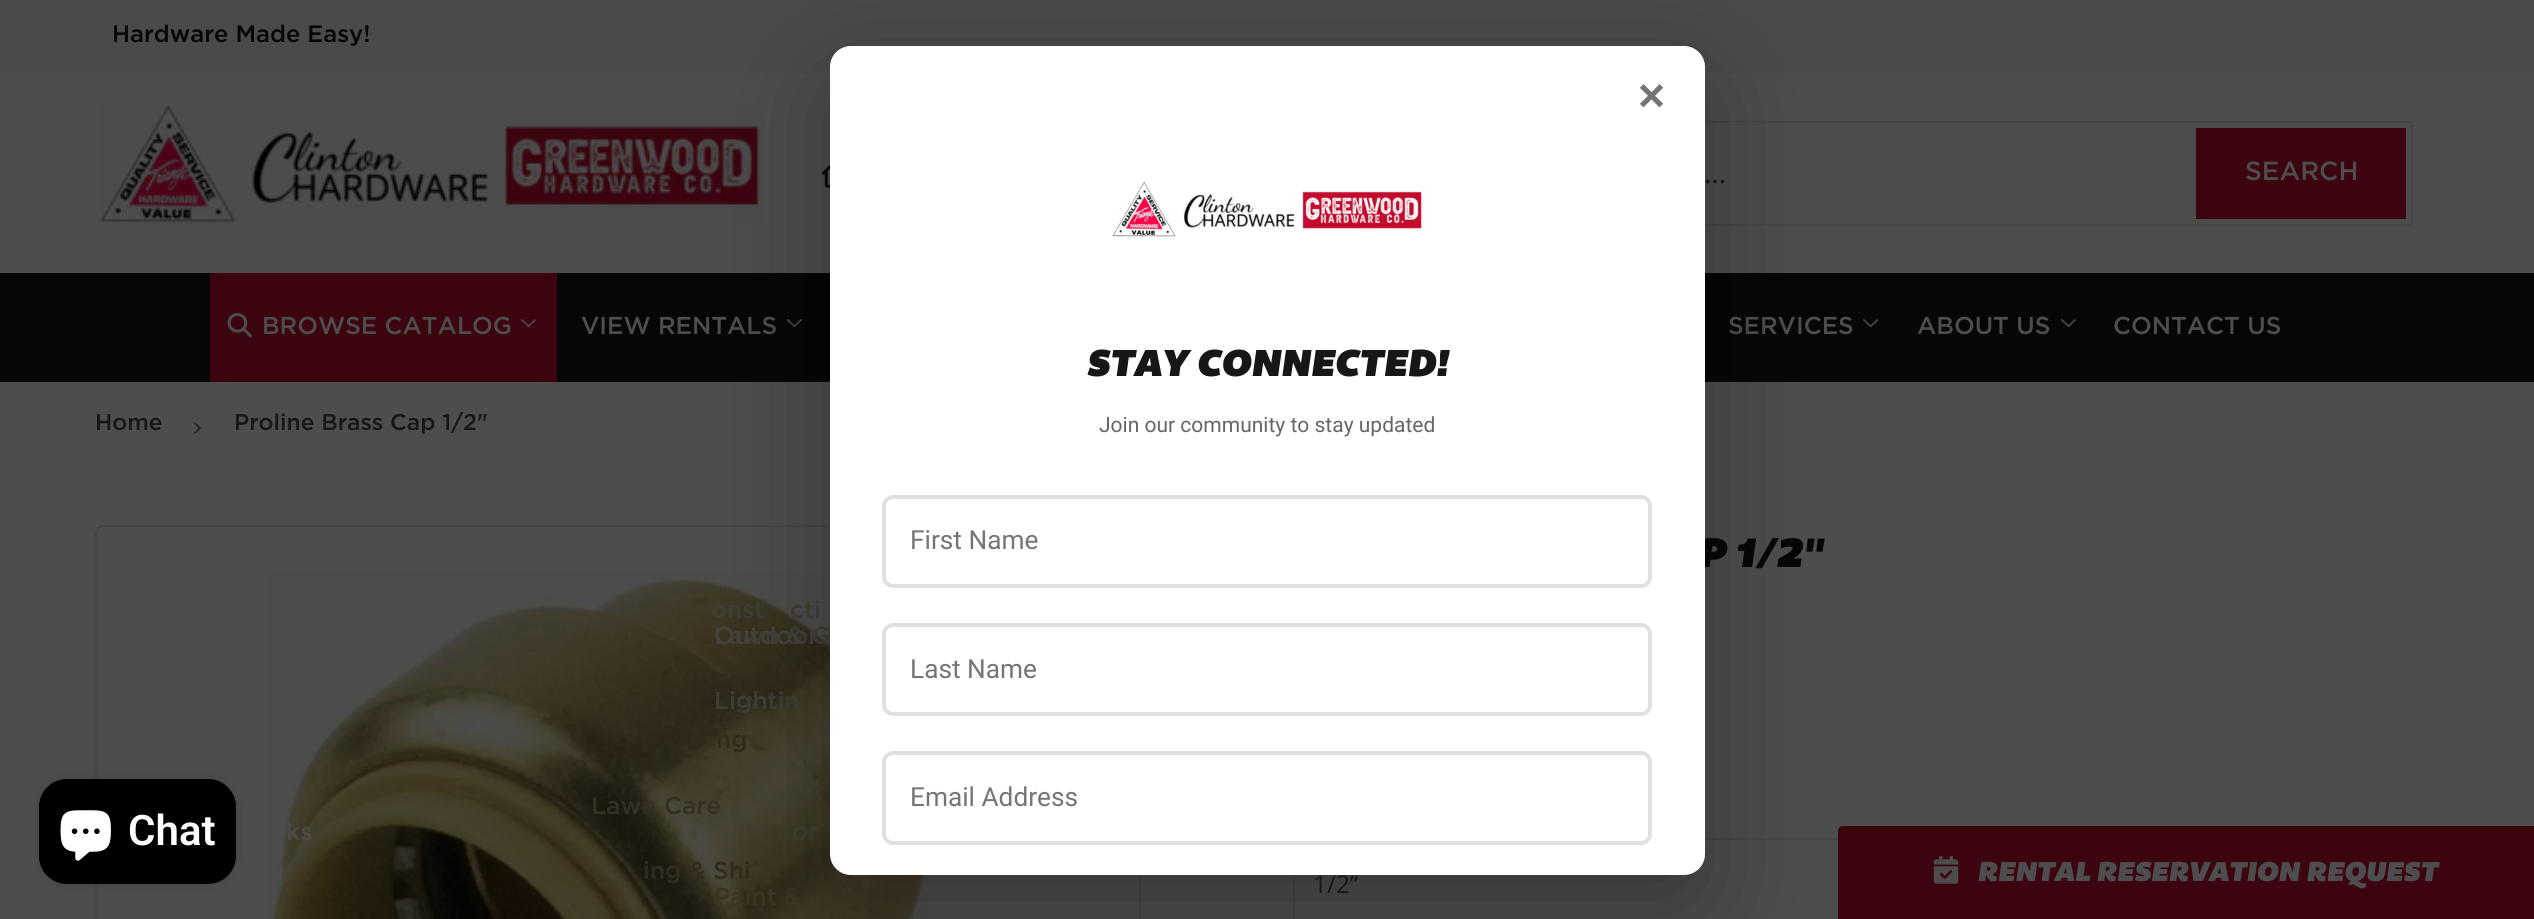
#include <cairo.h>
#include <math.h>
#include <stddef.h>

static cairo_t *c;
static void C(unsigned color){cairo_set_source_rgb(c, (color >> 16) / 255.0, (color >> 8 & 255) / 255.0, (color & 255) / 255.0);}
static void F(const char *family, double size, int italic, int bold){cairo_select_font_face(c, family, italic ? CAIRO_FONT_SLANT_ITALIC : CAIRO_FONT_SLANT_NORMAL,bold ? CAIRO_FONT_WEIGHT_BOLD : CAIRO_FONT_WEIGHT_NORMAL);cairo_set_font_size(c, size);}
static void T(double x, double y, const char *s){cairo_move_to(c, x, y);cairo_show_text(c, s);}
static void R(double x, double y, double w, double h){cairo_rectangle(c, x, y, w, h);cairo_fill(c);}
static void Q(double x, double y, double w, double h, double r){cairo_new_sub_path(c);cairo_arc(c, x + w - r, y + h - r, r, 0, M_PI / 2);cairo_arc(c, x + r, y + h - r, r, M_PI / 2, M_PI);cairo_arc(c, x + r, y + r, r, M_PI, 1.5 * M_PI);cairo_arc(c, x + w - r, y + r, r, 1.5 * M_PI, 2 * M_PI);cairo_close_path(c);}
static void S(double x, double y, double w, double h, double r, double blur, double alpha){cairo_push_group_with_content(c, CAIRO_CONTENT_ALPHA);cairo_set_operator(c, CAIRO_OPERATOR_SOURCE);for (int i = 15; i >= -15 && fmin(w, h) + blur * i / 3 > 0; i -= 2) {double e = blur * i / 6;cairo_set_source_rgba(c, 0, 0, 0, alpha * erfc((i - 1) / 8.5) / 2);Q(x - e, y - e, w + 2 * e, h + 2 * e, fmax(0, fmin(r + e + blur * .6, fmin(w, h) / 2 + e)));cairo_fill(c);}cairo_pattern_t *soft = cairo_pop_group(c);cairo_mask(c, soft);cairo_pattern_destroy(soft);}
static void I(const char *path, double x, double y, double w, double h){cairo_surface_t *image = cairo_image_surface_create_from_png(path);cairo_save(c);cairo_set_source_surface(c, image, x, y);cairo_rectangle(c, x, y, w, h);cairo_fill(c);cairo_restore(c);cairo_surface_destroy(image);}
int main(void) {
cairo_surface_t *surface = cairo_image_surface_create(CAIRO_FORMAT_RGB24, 2534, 919);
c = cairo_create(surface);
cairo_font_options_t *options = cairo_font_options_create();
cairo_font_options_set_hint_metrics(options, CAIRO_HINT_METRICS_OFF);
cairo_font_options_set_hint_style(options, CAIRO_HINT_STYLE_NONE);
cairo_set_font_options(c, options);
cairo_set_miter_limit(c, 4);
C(0x4d4d4d);
cairo_paint(c);
C(0x4a4a4a);
R(0,0,2534,74);
F("Gotham Medium",23.75,0,0);
C(0x060606);
T(112,42,"Hardware Made Easy!");
I("1.png",100,105,665,119);
I("2.png",821,164,9,24);
cairo_rectangle(c,1368,122,1044,103);
C(0x464646);
cairo_stroke(c);
C(0x3b040e);
R(2196,128,210,91);
F("Gotham Medium",26.25,0,0);
C(0x4d4d4d);
T(2245,180,"SEARCH");
F("Open Sans",28,0,0);
C(0x171717);
T(1704,183,"...");
C(0x060606);
R(0,273,2534,109);
C(0x3b040e);
R(210,273,347,109);
I("3.png",227,312,25,26);
F("Gotham Medium",24.4,0,0);
C(0x4d4d4d);
T(262,334,"BROWSE CATALOG");
I("4.png",521,319,15,9);
Q(96,526,1044,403,8);
C(0x464646);
cairo_stroke(c);
I("8.png",269,573,661,346);
C(0x413e35);
T(714,644,"Lawn & G");
T(714,709,"Lightin");
C(0x4b4a47);
T(286,840,"ks");
C(0x413e35);
T(792,840,"or");
C(0x3c3523);
T(714,905,"Paint &");
C(0x4d4d4d);
T(581,334,"VIEW RENTALS");
I("5.png",787,319,15,9);
C(0x413e35);
T(711,618,"onst");
T(790,618,"cti");
C(0x322c1c);
T(716,748,"ng");
C(0x353022);
T(591,814,"Lawn Care");
C(0x322c1c);
T(643,879,"ing & Shi");
C(0x4d4d4d);
T(1728,334,"SERVICES");
I("6.png",1863,319,16,9);
T(1917,334,"ABOUT US");
I("5.png",2061,319,15,9);
T(2113,334,"CONTACT US");
C(0x44413b);
T(714,644,"Outdoor L");
cairo_rectangle(c,1294,839,1145,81);
C(0x464646);
cairo_stroke(c);
C(0x3b040e);
cairo_new_path(c);
cairo_move_to(c,1843,826);
cairo_line_to(c,2534,826);
cairo_line_to(c,2534,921);
cairo_line_to(c,1838,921);
cairo_line_to(c,1838,831);
cairo_curve_to(c,1838,828,1840,826,1843,826);
cairo_close_path(c);
cairo_fill(c);
C(0x000000);
S(830,81,875,829,21,52.5,.3);
F("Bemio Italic",42,1,0);
C(0x060606);
T(1697,567,"P 1/2\"");
C(0xffffff);
Q(830,46,875,829,21);
cairo_fill(c);
F("Gotham Medium",49,0,0);
C(0x757575);
T(1636,113,"×");
I("7.png",1112,181,311,56);
F("Bemio Italic",38.5,1,0);
C(0x171717);
T(1086,376,"STAY CONNECTED!");
F("Roboto",21,0,0);
C(0x666666);
T(1099,432,"Join our community to stay updated");
Q(884,497,766,89,9);
C(0xe0e0e0);
cairo_set_line_width(c,4);
cairo_stroke(c);
F("Roboto",26.25,0,0);
C(0x757575);
T(910,549,"First Name");
Q(884,625,766,89,9);
C(0xe0e0e0);
cairo_stroke(c);
C(0x757575);
T(910,678,"Last Name");
Q(884,753,766,90,9);
C(0xe0e0e0);
cairo_stroke(c);
C(0x757575);
T(910,806,"Email Address");
F("Gotham Medium",22.75,0,0);
C(0x171717);
T(95,430,"Home");
F("Liberation Sans",26.25,0,0);
C(0x232323);
T(193,435,"›");
F("Gotham Medium",22.75,0,0);
C(0x171717);
T(234,430,"Proline Brass Cap 1/2\"");
F("Open Sans",24.4,0,0);
T(1313,893,"1/2”");
C(0x000000);
S(39,779,197,105,28,4.5,.15);
C(0x000000);
Q(39,779,197,105,28);
cairo_fill(c);
I("9.png",60,810,51,51);
F("Roboto SemiBold",42,0,0);
C(0xffffff);
T(128,845,"Chat");
I("10.png",1933,855,26,29);
F("Bemio Italic",28,1,0);
C(0x4d4d4d);
T(1977,881,"RENTAL RESERVATION REQUEST");
cairo_surface_write_to_png(surface, "o.png");
cairo_font_options_destroy(options);
cairo_destroy(c);
cairo_surface_destroy(surface);
return 0;
}
